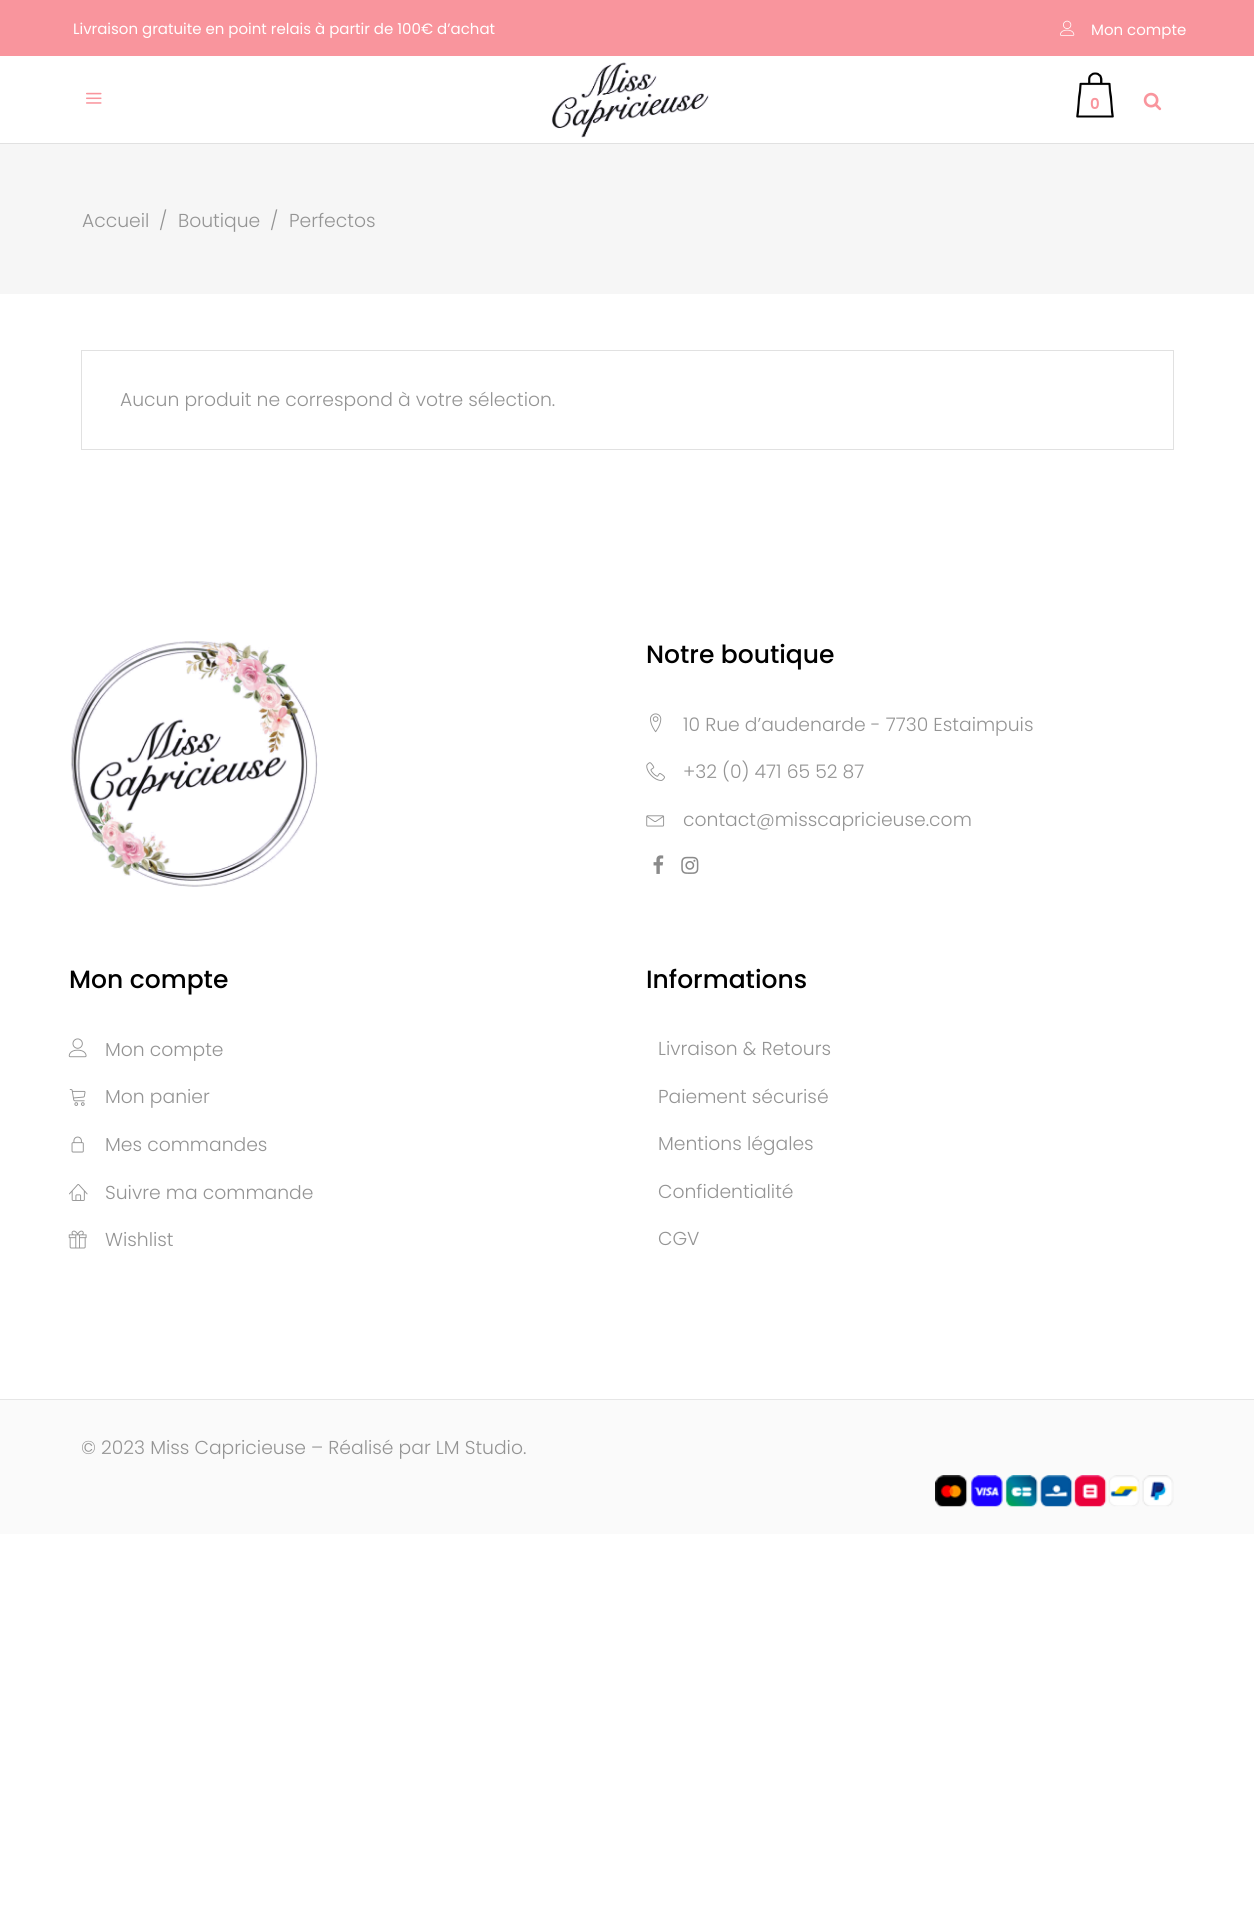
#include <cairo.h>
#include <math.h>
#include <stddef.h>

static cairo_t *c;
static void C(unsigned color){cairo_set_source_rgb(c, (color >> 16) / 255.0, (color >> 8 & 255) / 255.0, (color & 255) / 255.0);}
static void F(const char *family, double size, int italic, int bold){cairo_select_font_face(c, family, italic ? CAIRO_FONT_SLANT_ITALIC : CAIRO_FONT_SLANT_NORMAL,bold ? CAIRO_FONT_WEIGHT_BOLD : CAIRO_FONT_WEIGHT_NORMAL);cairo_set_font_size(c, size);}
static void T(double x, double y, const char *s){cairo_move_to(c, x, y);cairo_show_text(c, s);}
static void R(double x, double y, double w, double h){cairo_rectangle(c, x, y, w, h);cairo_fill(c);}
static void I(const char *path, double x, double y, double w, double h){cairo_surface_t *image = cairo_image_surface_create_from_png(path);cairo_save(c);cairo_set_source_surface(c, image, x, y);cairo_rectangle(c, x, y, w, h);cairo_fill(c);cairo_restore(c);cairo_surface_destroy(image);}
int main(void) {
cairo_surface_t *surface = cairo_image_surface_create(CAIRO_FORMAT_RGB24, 1254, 1921);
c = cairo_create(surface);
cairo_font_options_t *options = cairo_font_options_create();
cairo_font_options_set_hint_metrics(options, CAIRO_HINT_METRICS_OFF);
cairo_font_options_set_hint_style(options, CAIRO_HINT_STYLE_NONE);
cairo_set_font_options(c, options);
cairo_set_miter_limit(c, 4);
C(0xffffff);
cairo_paint(c);
C(0xf9959d);
R(0,0,1254,56);
F("Poppins",15,0,0);
C(0xffffff);
T(73,34,"Livraison gratuite en point relais à partir de 100€ d’achat");
I("1.png",1060,20,15,16);
T(1091,35,"Mon compte");
C(0xe1e1e1);
R(0,143,1254,1);
I("2.png",86,92,16,12);
I("3.png",551,62,158,76);
I("4.png",1076,72,38,46);
F("Poppins SemiBold",15,0,0);
C(0xf9959d);
T(1090,109,"0");
I("5.png",1143,92,19,19);
C(0xf6f6f6);
R(0,144,1254,150);
F("Poppins Light",18.75,0,0);
C(0x949494);
T(82,227,"Accueil");
T(159,227,"/");
T(178,227,"Boutique");
T(270,227,"/");
T(289,227,"Perfectos");
cairo_rectangle(c,81.5,350.5,1092,99);
C(0xe1e1e1);
cairo_set_line_width(c,1);
cairo_stroke(c);
C(0x949494);
T(120,406,"Aucun produit ne correspond à votre sélection.");
I("6.png",70,641,248,246);
F("Poppins Medium",25,0,0);
C(0x000000);
T(646,663,"Notre boutique");
I("7.png",650,713,12,20);
F("Poppins Light",18.75,0,0);
C(0x949494);
T(683,731,"10 Rue d’audenarde - 7730 Estaimpuis");
I("8.png",646,762,19,19);
T(683,778,"+32 (0) 471 65 52 87");
I("9.png",646,815,19,12);
T(683,826,"contact@misscapricieuse.com");
I("10.png",653,855,11,19);
I("11.png",681,856,18,18);
F("Poppins Medium",25,0,0);
C(0x000000);
T(69,988,"Mon compte");
I("12.png",68,1038,19,20);
F("Poppins Light",18.75,0,0);
C(0x949494);
T(105,1056,"Mon compte");
I("13.png",69,1089,17,17);
T(105,1103,"Mon panier");
I("14.png",71,1136,13,17);
T(105,1151,"Mes commandes");
I("15.png",69,1184,19,17);
T(105,1199,"Suivre ma commande");
I("16.png",68,1230,19,19);
T(105,1246,"Wishlist");
F("Poppins Medium",25,0,0);
C(0x000000);
T(646,988,"Informations");
F("Poppins Light",18.75,0,0);
C(0x949494);
T(658,1055,"Livraison & Retours");
T(658,1103,"Paiement sécurisé");
T(658,1150,"Mentions légales");
T(658,1198,"Confidentialité");
T(658,1245,"CGV");
C(0xfafafa);
R(0,1400,1254,134);
C(0xe6e6e6);
R(0,1399,1254,1);
C(0x949494);
T(81,1454,"© 2023 Miss Capricieuse – Réalisé par LM Studio.");
I("17.png",935,1475,239,32);
cairo_surface_write_to_png(surface, "o.png");
cairo_font_options_destroy(options);
cairo_destroy(c);
cairo_surface_destroy(surface);
return 0;
}
